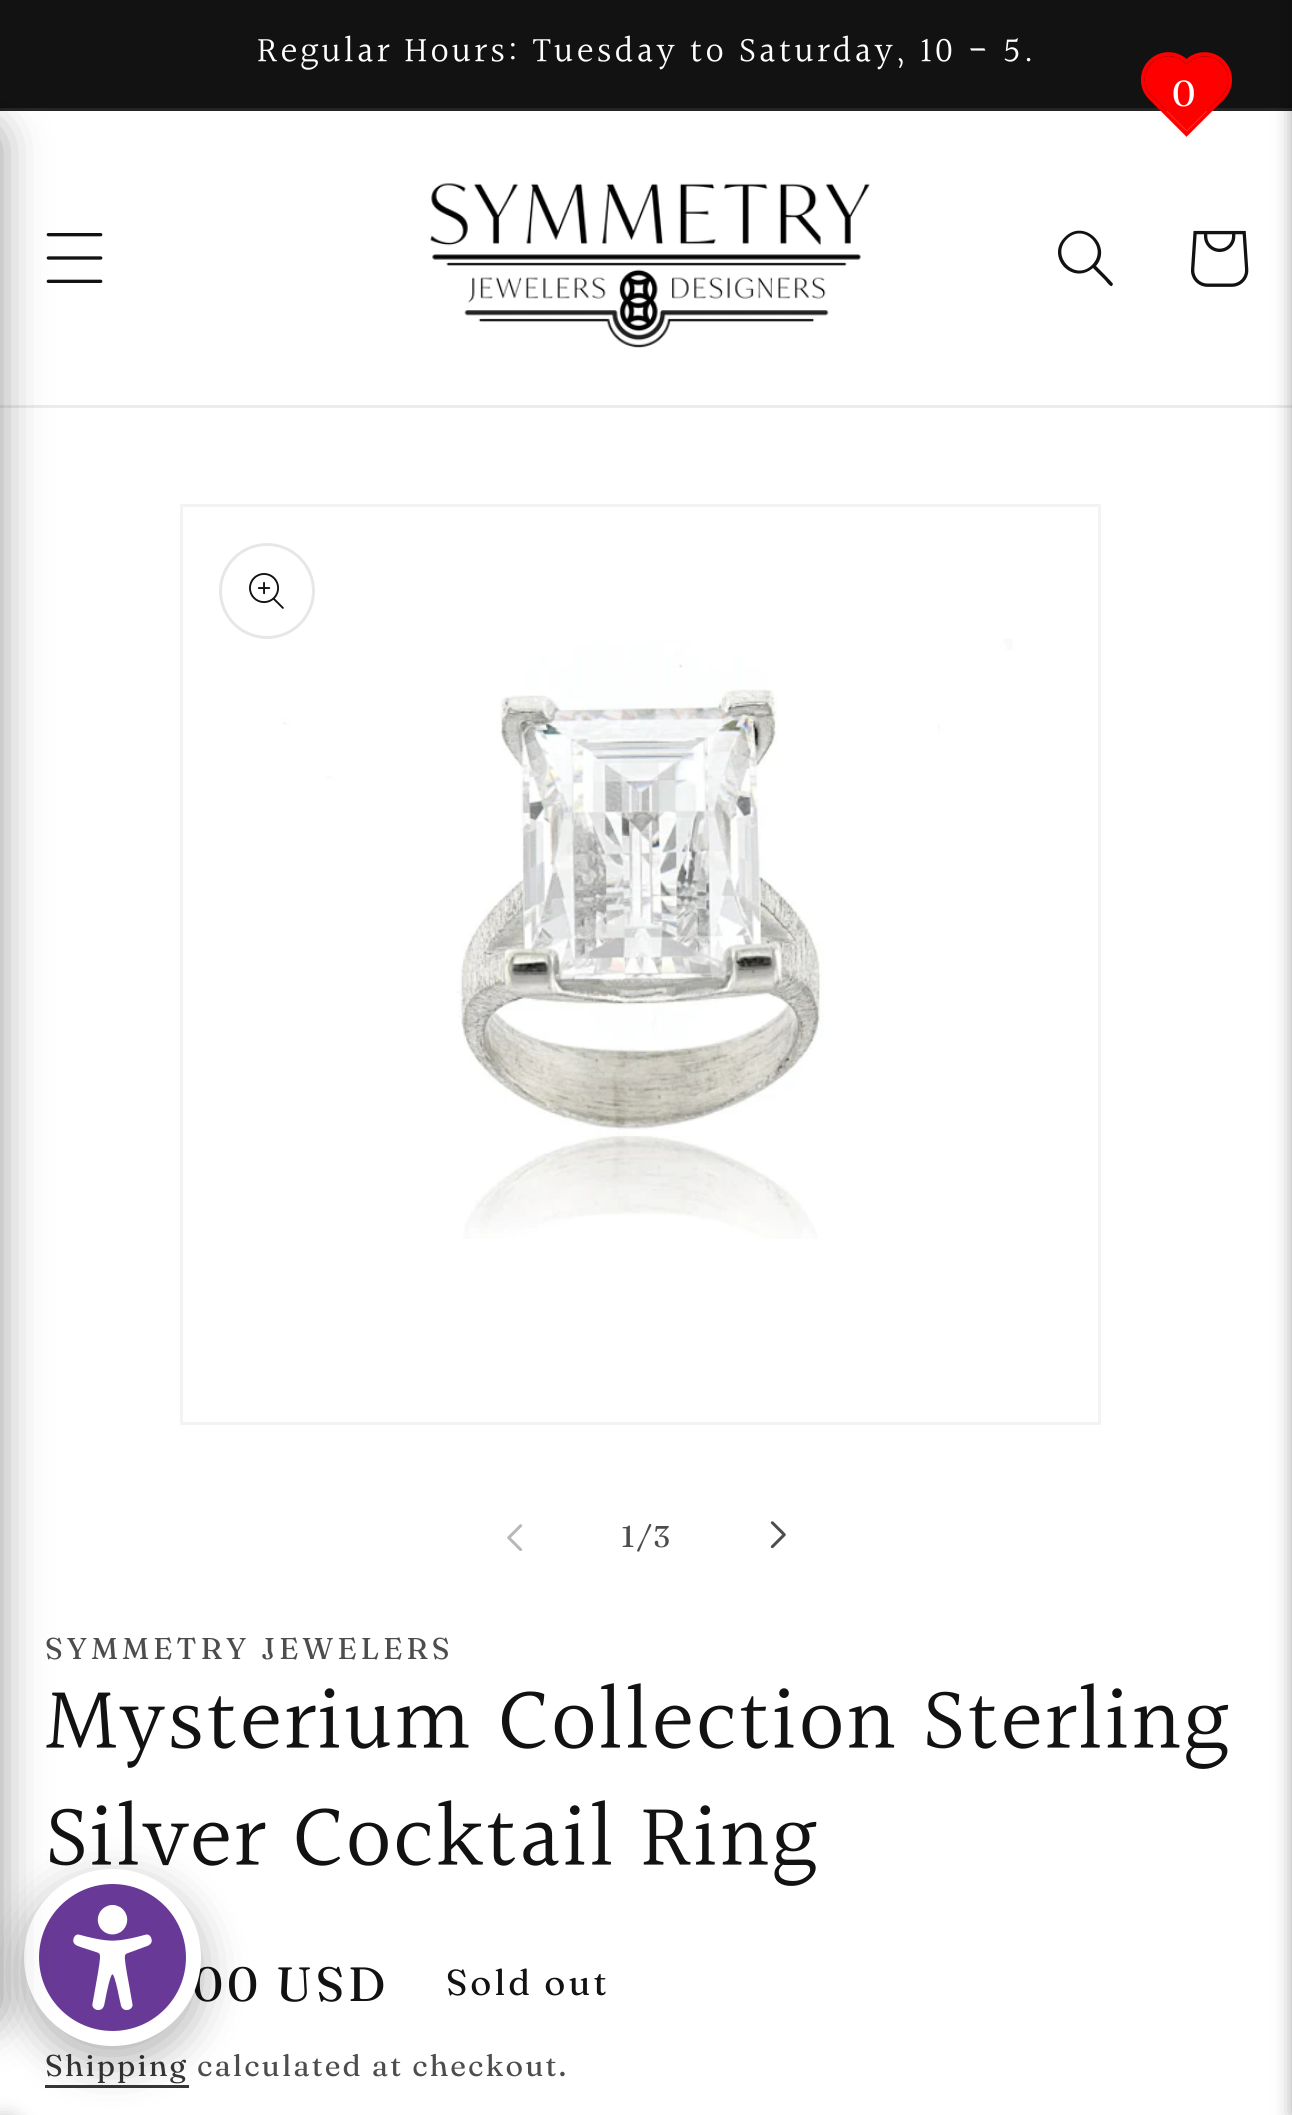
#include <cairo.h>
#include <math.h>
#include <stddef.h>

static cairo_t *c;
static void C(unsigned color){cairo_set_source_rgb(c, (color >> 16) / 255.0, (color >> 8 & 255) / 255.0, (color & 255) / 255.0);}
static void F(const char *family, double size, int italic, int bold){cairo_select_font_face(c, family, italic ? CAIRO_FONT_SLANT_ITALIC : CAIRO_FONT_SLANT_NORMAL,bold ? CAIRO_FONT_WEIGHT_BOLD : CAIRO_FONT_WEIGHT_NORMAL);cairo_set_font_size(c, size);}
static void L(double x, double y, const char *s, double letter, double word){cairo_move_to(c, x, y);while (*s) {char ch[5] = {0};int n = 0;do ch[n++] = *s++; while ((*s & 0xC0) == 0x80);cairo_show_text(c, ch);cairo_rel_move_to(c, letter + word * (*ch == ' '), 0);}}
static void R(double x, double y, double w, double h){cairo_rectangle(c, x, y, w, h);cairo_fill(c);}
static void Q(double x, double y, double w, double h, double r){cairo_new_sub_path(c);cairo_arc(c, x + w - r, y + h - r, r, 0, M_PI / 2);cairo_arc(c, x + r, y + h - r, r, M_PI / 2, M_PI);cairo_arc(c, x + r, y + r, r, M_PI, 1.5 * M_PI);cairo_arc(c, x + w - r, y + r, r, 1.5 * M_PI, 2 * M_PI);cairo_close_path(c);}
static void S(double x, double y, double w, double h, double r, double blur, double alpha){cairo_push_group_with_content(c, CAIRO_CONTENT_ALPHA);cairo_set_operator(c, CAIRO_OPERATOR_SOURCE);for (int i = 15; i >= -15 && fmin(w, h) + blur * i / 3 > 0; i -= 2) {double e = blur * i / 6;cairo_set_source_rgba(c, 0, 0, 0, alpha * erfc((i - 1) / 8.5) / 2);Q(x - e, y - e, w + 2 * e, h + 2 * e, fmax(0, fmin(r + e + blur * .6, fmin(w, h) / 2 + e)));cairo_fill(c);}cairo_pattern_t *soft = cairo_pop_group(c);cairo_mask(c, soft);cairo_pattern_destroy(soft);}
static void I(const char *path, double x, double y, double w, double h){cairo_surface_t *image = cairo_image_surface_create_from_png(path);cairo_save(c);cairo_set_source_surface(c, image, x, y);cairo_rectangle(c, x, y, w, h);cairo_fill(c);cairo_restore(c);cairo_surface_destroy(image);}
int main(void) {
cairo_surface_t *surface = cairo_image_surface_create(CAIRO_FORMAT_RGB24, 1292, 2115);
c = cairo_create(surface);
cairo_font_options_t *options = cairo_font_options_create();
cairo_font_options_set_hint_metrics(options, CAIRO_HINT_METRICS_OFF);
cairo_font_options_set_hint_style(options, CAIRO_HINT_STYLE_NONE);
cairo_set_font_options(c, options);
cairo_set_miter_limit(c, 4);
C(0xffffff);
cairo_paint(c);
C(0x121212);
R(0,0,1292,108);
C(0x252525);
R(0,108,1292,3);
F("Halant",36,0,0);
C(0xffffff);
L(257,63,"Regular Hours: Tuesday to Saturday, 10 - 5.",3,0);
I("1.png",1140,52,93,85);
F("Fraunces",36,0,0);
L(1172,106,"0",1.8,0);
C(0xececec);
R(0,405,1292,3);
C(0x000000);
S(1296,0,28,2115,0,10.5,.5);
I("2.png",46,233,57,50);
I("3.png",430,183,440,165);
C(0x121212);
cairo_set_fill_rule(c,CAIRO_FILL_RULE_EVEN_ODD);
cairo_new_path(c);
cairo_move_to(c,1092,265);
cairo_curve_to(c,1075,282,1050,256,1067,239);
cairo_curve_to(c,1084,222,1109,248,1092,265);
cairo_close_path(c);
cairo_move_to(c,1093,268);
cairo_curve_to(c,1072,286,1045,256,1065,237);
cairo_curve_to(c,1084,218,1113,246,1096,266);
cairo_curve_to(c,1098,268,1113,283,1113,284);
cairo_line_to(c,1112,286);
cairo_curve_to(c,1110,287,1106,281,1105,280);
cairo_close_path(c);
cairo_fill(c);
I("4.png",1191,230,58,57);
cairo_rectangle(c,181.5,505.5,918,918);
C(0xf3f3f3);
cairo_set_line_width(c,3);
cairo_stroke(c);
cairo_arc(c,267,591,46.5,0,2 * M_PI);
C(0xe7e7e7);
cairo_stroke(c);
I("5.png",249,573,35,36);
I("6.png",283,639,730,600);
I("7.png",507,1524,16,27);
F("Fraunces",30,0,0);
C(0x4d4d4d);
L(621,1547,"1/3",2.1,0);
I("8.png",770,1521,16,28);
L(45,1659,"SYMMETRY JEWELERS",3.9,0);
F("Halant",90,0,0);
C(0x121212);
L(45,1752,"Mysterium Collection Sterling",1.8,0);
L(45,1869,"Silver Cocktail Ring",1.8,0);
F("Fraunces",48,0,0);
L(192,2001,"00 USD",3.9,-1);
F("Fraunces",36,0,0);
L(446,1995,"Sold out",3,0);
F("Fraunces",30,0,0);
C(0x363636);
L(45,2076,"Shipping",2.1,0);
R(45,2085,144,3);
C(0x4d4d4d);
L(197,2076,"calculated at checkout.",2.1,0);
C(0x000000);
S(24,1884,177,177,88.5,22.5,.3);
I("9.png",24,1869,177,177);
S(-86,123,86,1902,18,22.5,.4);
S(-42,2115,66,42,15,9,.2);
cairo_surface_write_to_png(surface, "o.png");
cairo_font_options_destroy(options);
cairo_destroy(c);
cairo_surface_destroy(surface);
return 0;
}
